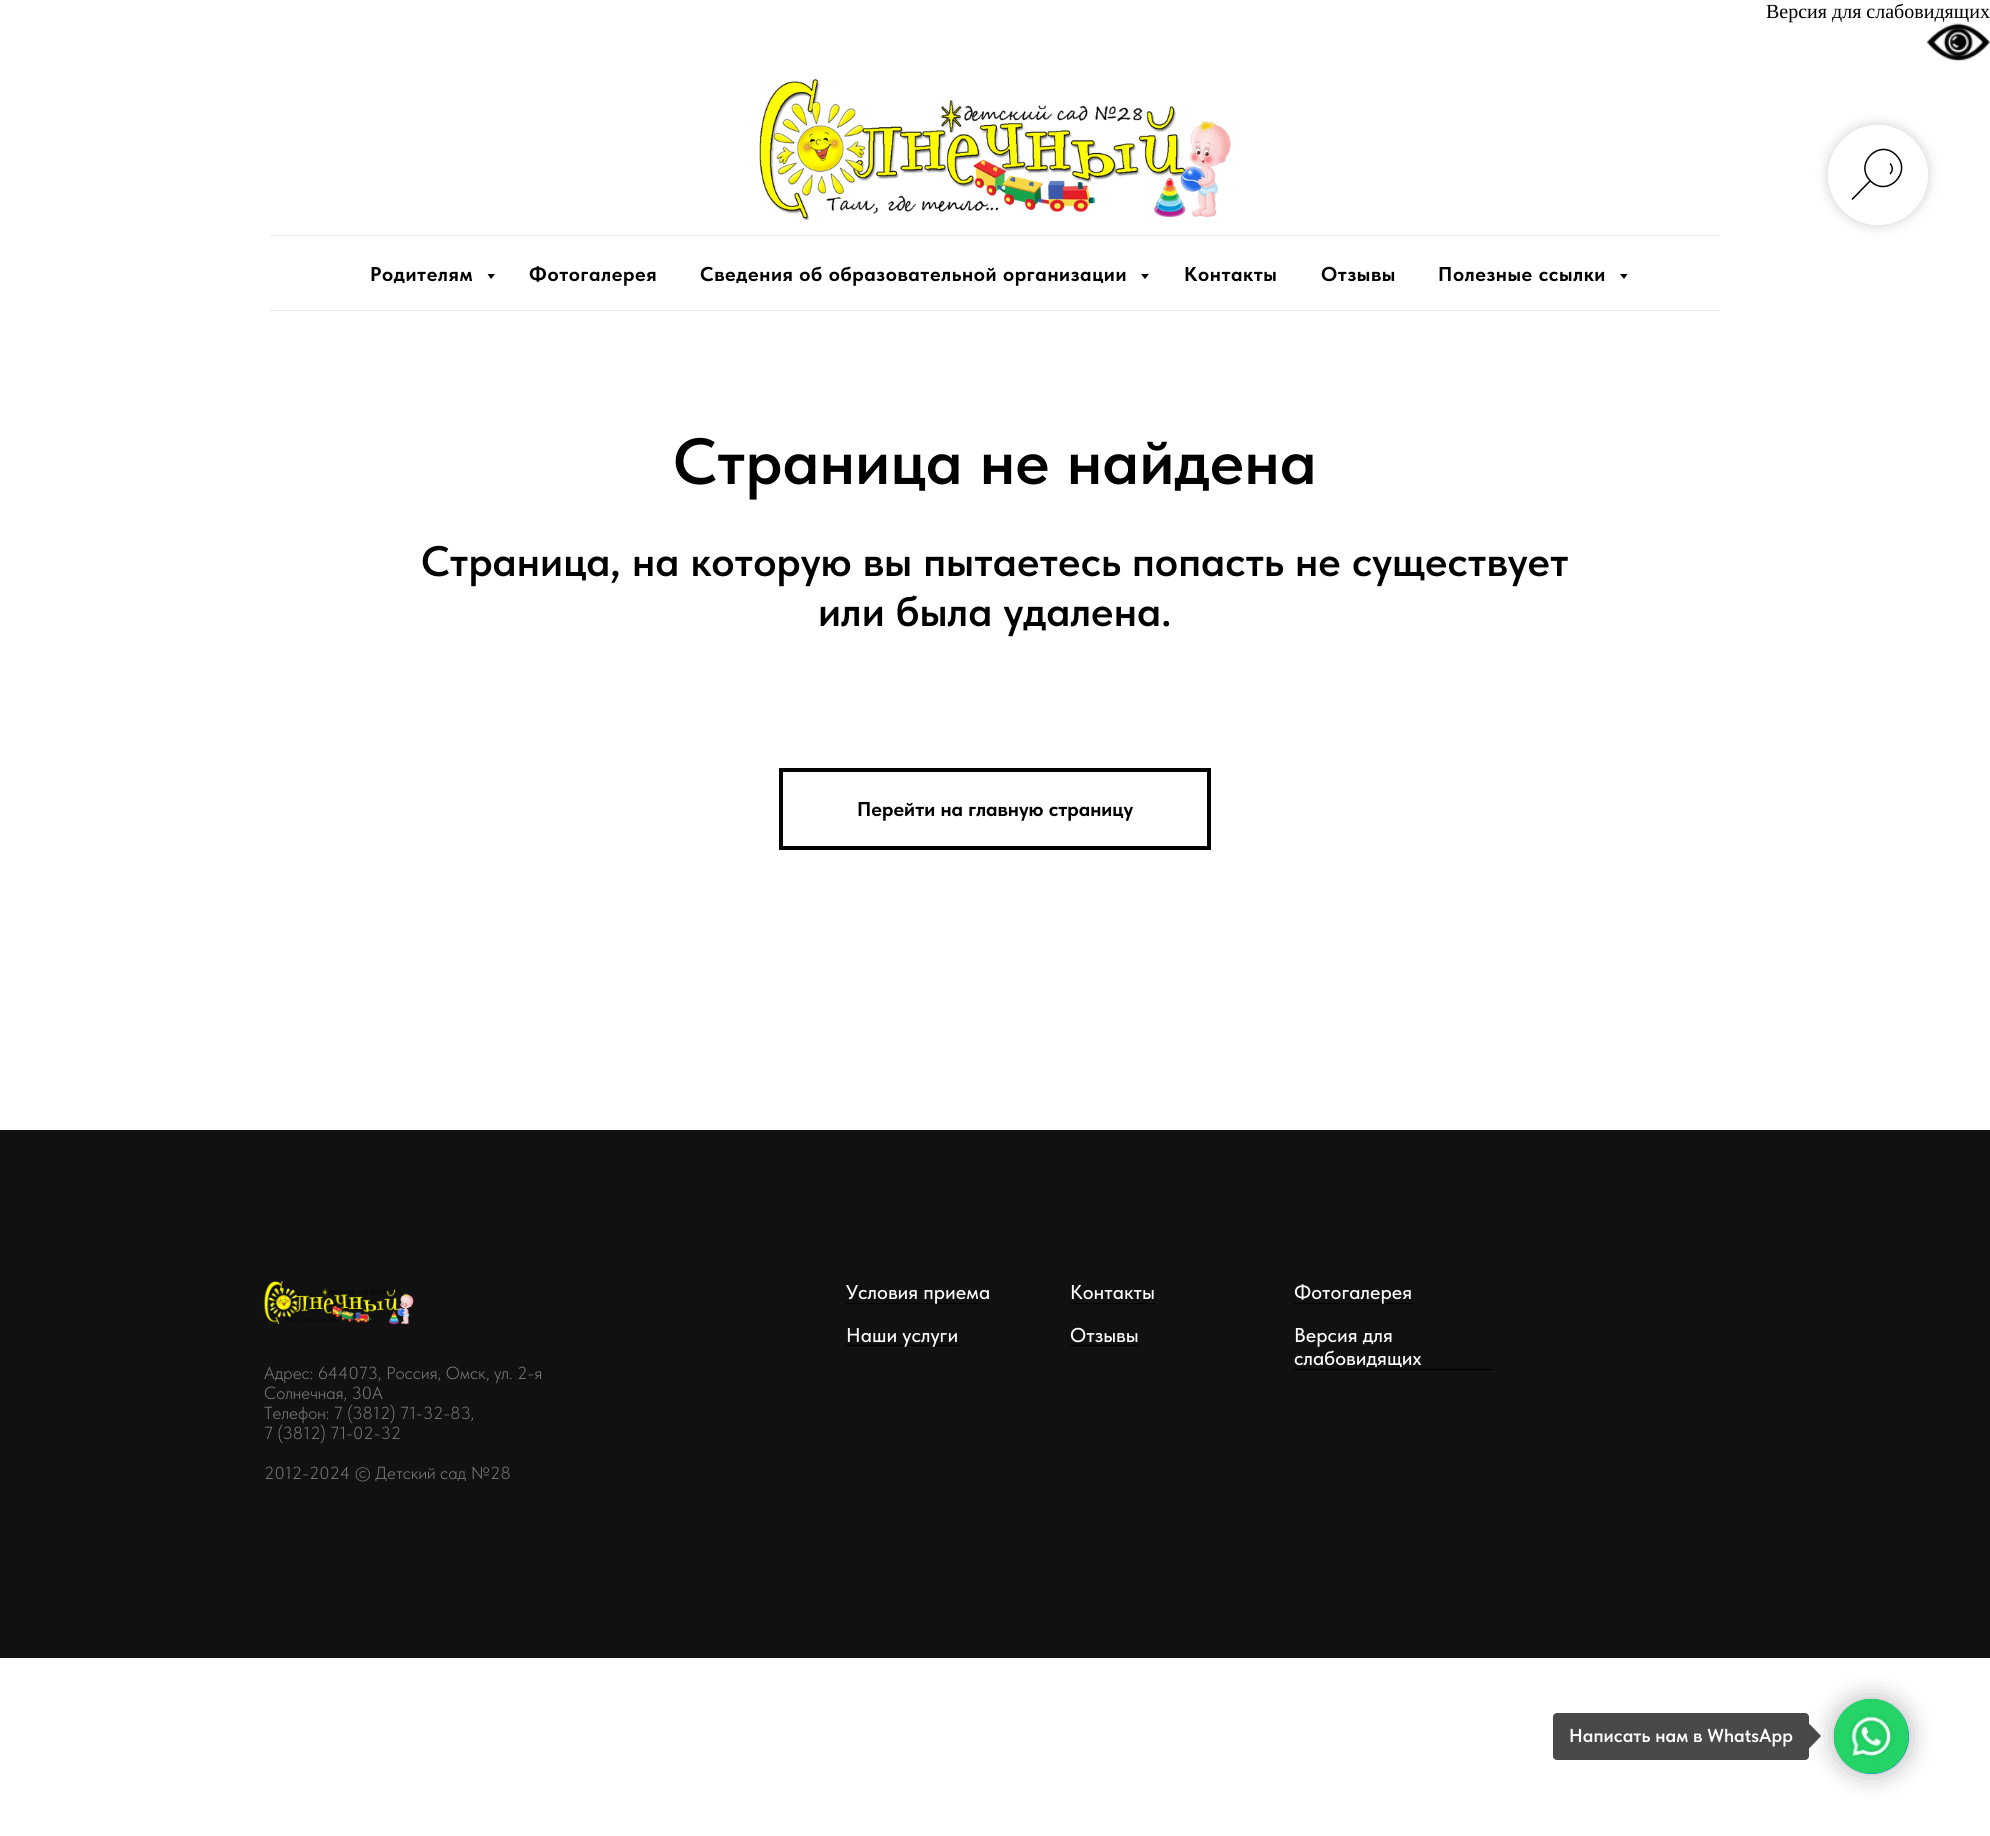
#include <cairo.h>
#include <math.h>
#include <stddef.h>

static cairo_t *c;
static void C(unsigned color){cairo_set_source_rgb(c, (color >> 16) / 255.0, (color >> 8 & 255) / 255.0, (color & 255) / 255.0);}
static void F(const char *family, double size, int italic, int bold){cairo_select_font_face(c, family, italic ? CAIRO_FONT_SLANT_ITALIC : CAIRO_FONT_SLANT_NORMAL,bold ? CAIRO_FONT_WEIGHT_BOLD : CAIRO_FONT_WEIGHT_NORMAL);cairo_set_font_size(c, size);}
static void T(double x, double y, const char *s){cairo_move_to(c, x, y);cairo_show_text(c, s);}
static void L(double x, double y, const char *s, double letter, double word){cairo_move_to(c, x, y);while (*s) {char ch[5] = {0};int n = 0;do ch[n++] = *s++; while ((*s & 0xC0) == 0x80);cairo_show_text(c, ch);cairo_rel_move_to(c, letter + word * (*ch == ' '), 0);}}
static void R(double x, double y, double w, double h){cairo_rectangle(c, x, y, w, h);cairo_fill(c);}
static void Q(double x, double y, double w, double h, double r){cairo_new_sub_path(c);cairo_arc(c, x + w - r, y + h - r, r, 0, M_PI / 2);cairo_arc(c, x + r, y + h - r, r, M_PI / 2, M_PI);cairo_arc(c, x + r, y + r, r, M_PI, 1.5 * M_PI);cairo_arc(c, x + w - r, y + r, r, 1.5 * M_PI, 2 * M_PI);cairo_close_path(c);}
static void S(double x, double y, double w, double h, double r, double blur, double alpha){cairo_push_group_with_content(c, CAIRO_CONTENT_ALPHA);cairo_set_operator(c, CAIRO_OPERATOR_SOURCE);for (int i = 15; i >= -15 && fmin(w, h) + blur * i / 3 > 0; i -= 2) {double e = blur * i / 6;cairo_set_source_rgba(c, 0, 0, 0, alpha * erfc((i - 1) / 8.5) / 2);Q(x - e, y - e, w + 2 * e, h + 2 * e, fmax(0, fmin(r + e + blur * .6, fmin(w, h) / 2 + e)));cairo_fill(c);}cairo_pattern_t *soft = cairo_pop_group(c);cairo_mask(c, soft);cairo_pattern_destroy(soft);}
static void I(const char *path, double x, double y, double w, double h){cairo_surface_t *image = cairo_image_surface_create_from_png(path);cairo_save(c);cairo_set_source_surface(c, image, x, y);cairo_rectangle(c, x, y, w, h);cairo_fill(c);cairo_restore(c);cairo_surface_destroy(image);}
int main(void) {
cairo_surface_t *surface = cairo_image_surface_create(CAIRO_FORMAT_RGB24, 1990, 1836);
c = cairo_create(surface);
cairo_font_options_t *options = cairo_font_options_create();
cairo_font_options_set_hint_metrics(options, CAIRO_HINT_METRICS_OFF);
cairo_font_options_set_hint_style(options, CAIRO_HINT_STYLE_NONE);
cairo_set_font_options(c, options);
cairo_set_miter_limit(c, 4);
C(0xffffff);
cairo_paint(c);
F("Liberation Serif",20,0,0);
C(0x000000);
T(1766,18,"Версия для слабовидящих");
I("1.png",1926,23,64,39);
cairo_save(c);
cairo_set_fill_rule(c,CAIRO_FILL_RULE_EVEN_ODD);
cairo_new_path(c);
cairo_move_to(c,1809,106);
cairo_line_to(c,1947,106);
cairo_line_to(c,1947,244);
cairo_line_to(c,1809,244);
cairo_close_path(c);
cairo_move_to(c,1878,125);
cairo_curve_to(c,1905.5,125,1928,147.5,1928,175);
cairo_curve_to(c,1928,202.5,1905.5,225,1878,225);
cairo_curve_to(c,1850.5,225,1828,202.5,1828,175);
cairo_curve_to(c,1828,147.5,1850.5,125,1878,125);
cairo_close_path(c);
cairo_clip(c);
C(0x000000);
S(1828,125,100,100,50,6,.2);
cairo_restore(c);
cairo_set_source_rgba(c,1,1,1,0.8);
cairo_arc(c,1878,175,50,0,2 * M_PI);
cairo_fill(c);
cairo_new_path(c);
cairo_move_to(c,1852.5,199);
cairo_line_to(c,1869.5,181.5);
C(0x000000);
cairo_set_line_width(c,1.5);
cairo_set_line_cap(c,CAIRO_LINE_CAP_SQUARE);
cairo_stroke(c);
cairo_new_path(c);
cairo_move_to(c,1896,155);
cairo_curve_to(c,1913,172,1887.5,198,1870.5,181);
cairo_curve_to(c,1853.5,164,1879,138,1896,155);
cairo_close_path(c);
cairo_move_to(c,1890,163.5);
cairo_curve_to(c,1893,166.5,1893,171,1890,174);
cairo_set_line_cap(c,CAIRO_LINE_CAP_BUTT);
cairo_stroke(c);
I("2.png",759,79,472,141);
C(0xeaeaea);
R(270,235,1450,1);
F("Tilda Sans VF",20,0,1);
C(0x000000);
L(370,281,"Родителям",.6,0);
cairo_new_path(c);
cairo_move_to(c,487.5,274);
cairo_line_to(c,495,274);
cairo_line_to(c,491,279);
cairo_close_path(c);
cairo_fill(c);
L(529,281,"Фотогалерея",.6,0);
L(700,281,"Сведения об образовательной организации",.6,0);
cairo_new_path(c);
cairo_move_to(c,1141,274);
cairo_line_to(c,1149,274);
cairo_line_to(c,1145,279);
cairo_close_path(c);
cairo_fill(c);
L(1184,281,"Контакты",.6,0);
L(1321,281,"Отзывы",.6,0);
L(1438,281,"Полезные ссылки",.6,0);
cairo_new_path(c);
cairo_move_to(c,1620,274);
cairo_line_to(c,1627.5,274);
cairo_line_to(c,1624,279);
cairo_close_path(c);
cairo_fill(c);
C(0xeaeaea);
R(270,310,1450,1);
F("Tilda Sans VF SemiBold",65,0,0);
C(0x000000);
T(673,484,"Страница не найдена");
F("Tilda Sans VF SemiBold",42.5,0,0);
T(421,576,"Страница, на которую вы пытаетесь попасть не существует");
T(818,626,"или была удалена.");
cairo_rectangle(c,781,770,428,78);
cairo_set_line_width(c,4);
cairo_stroke(c);
F("Tilda Sans VF",20,0,1);
T(857,816,"Перейти на главную страницу");
C(0x111111);
R(0,1130,1990,528);
C(0x000000);
R(846,1303,144,1);
F("Tilda Sans VF Medium",20,0,0);
C(0xffffff);
T(846,1299,"Условия приема");
C(0x000000);
R(846,1345,113,1);
C(0xffffff);
T(846,1342,"Наши услуги");
C(0x000000);
R(1070,1303,85,1);
C(0xffffff);
T(1070,1299,"Контакты");
C(0x000000);
R(1070,1345,69,1);
C(0xffffff);
T(1070,1342,"Отзывы");
C(0x000000);
R(1294,1303,119,1);
C(0xffffff);
T(1294,1299,"Фотогалерея");
C(0x000000);
R(1294,1369,200,1);
C(0xffffff);
T(1294,1342,"Версия для");
T(1294,1365,"слабовидящих");
I("3.png",264,1281,150,44);
F("Tilda Sans VF Light",17.5,0,0);
C(0x7d7d7d);
T(264,1379,"Адрес: 644073, Россия, Омск, ул. 2-я");
T(264,1399,"Солнечная, 30А");
T(264,1419,"Телефон: 7 (3812) 71-32-83,");
T(264,1439,"7 (3812) 71-02-32");
T(264,1479,"2012-2024 © Детский сад №28");
C(0x494949);
Q(1553,1713,256,47,4);
cairo_fill(c);
F("Tilda Sans VF SemiBold",18.75,0,0);
C(0xffffff);
T(1569,1742,"Написать нам в WhatsApp");
C(0x494949);
cairo_new_path(c);
cairo_move_to(c,1809,1748.5);
cairo_line_to(c,1809,1723.5);
cairo_line_to(c,1821,1736);
cairo_close_path(c);
cairo_fill(c);
C(0x000000);
S(1834,1699,75,75,37.5,12.5,.3);
C(0x0088cc);
cairo_arc(c,1871.5,1736.5,37.5,0,2 * M_PI);
cairo_fill(c);
I("4.png",1833,1698,76,76);
cairo_surface_write_to_png(surface, "o.png");
cairo_font_options_destroy(options);
cairo_destroy(c);
cairo_surface_destroy(surface);
return 0;
}
